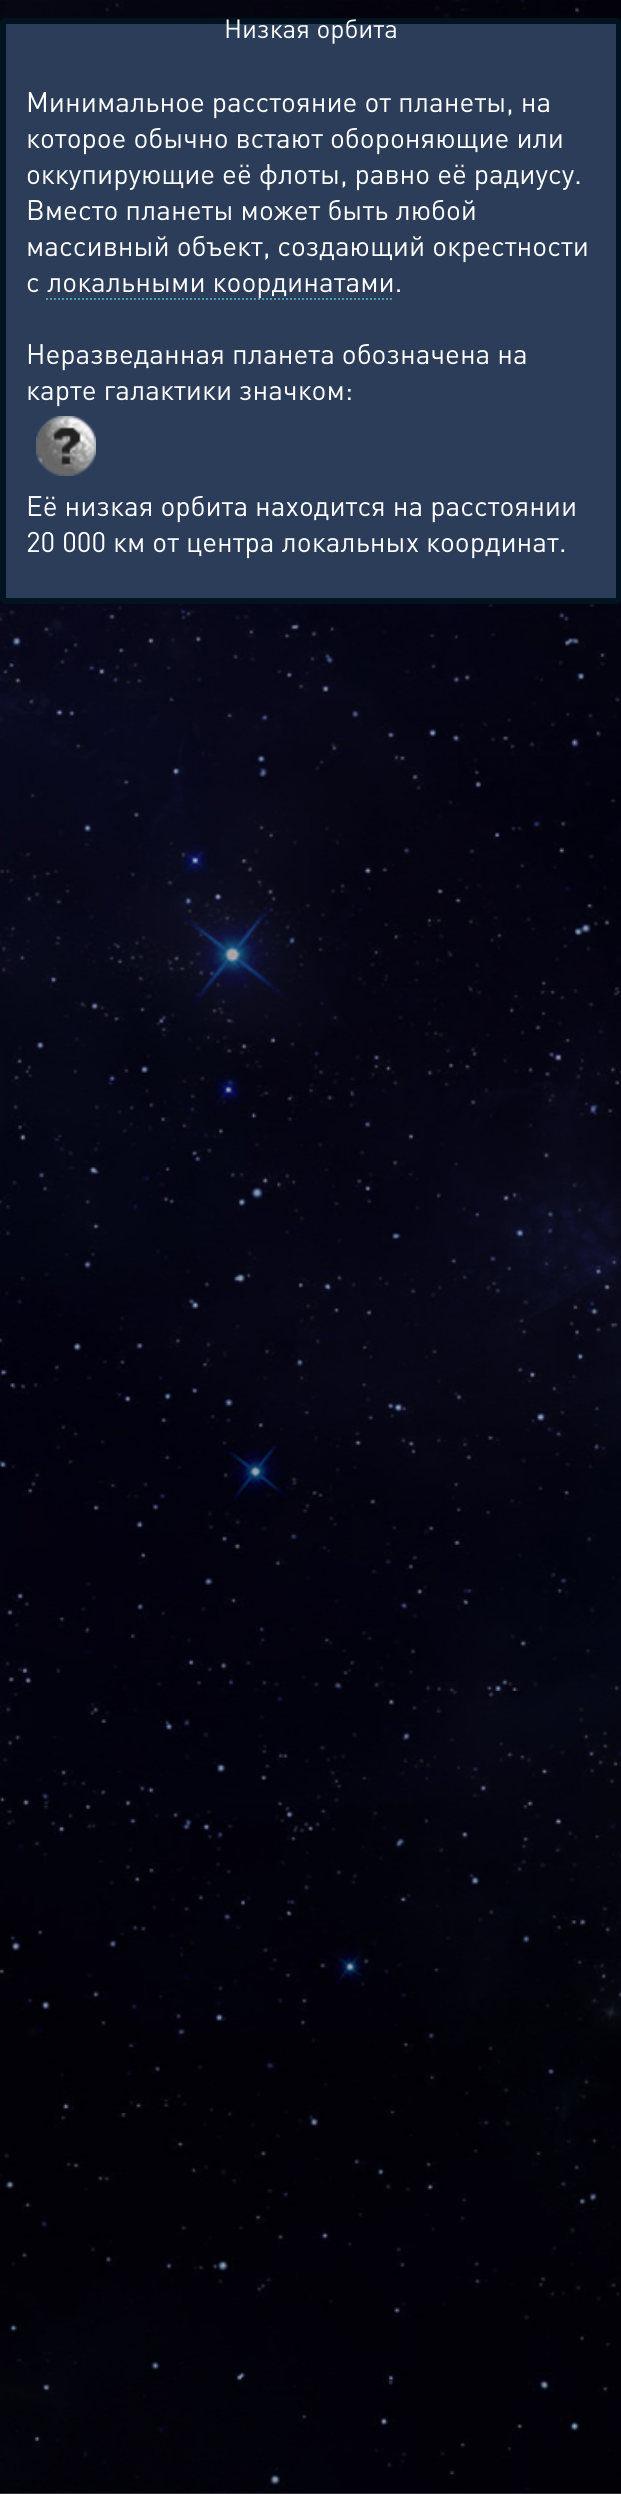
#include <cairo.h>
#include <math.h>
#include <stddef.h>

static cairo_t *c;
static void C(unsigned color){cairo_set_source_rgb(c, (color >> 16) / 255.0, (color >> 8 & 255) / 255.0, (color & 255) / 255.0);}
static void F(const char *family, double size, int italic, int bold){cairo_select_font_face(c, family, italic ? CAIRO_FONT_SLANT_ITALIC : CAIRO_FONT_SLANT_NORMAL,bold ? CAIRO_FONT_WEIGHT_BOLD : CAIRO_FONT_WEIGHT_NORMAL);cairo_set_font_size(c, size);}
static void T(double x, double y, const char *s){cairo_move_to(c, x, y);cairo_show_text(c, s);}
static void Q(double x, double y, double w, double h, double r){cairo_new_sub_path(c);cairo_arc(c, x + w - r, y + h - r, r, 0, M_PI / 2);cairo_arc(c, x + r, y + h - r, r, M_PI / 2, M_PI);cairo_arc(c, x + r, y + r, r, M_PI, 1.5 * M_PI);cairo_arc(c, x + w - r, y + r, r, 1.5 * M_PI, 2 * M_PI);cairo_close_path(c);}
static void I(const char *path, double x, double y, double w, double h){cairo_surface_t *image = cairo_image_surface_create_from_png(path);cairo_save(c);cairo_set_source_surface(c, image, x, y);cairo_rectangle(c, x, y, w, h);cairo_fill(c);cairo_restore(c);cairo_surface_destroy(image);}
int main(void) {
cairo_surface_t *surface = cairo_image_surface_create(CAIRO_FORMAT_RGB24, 621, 2494);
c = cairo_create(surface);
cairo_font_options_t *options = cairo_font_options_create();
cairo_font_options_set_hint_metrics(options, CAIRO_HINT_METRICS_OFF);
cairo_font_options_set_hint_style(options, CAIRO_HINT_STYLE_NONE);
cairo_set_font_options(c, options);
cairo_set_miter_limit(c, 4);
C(0xffffff);
cairo_paint(c);
I("1.png",0,0,621,2494);
C(0x2c3d59);
Q(3,21,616,580,3);
cairo_fill_preserve(c);
C(0x01131f);
cairo_set_line_width(c,6);
cairo_stroke(c);
F("DIN",26,0,0);
C(0xffffff);
T(224,38,"Низкая орбита");
F("DIN",28,0,0);
T(26,112,"Минимальное расстояние от планеты, на");
T(26,148,"которое обычно встают обороняющие или");
T(26,184,"оккупирующие её флоты, равно её радиусу.");
T(26,220,"Вместо планеты может быть любой");
T(26,256,"массивный объект, создающий окрестности");
T(26,292,"с");
cairo_new_path(c);
cairo_move_to(c,46,299);
cairo_line_to(c,394,299);
C(0x4e9dba);
cairo_set_line_width(c,2);
cairo_set_dash(c,(double[]){2,2},2,0);
cairo_stroke(c);
C(0xffffff);
T(47,292,"локальными координатами.");
T(26,364,"Неразведанная планета обозначена на");
T(26,400,"карте галактики значком:");
I("2.png",36,416,60,60);
T(26,516,"Её низкая орбита находится на расстоянии");
T(26,552,"20 000 км от центра локальных координат.");
cairo_surface_write_to_png(surface, "o.png");
cairo_font_options_destroy(options);
cairo_destroy(c);
cairo_surface_destroy(surface);
return 0;
}
